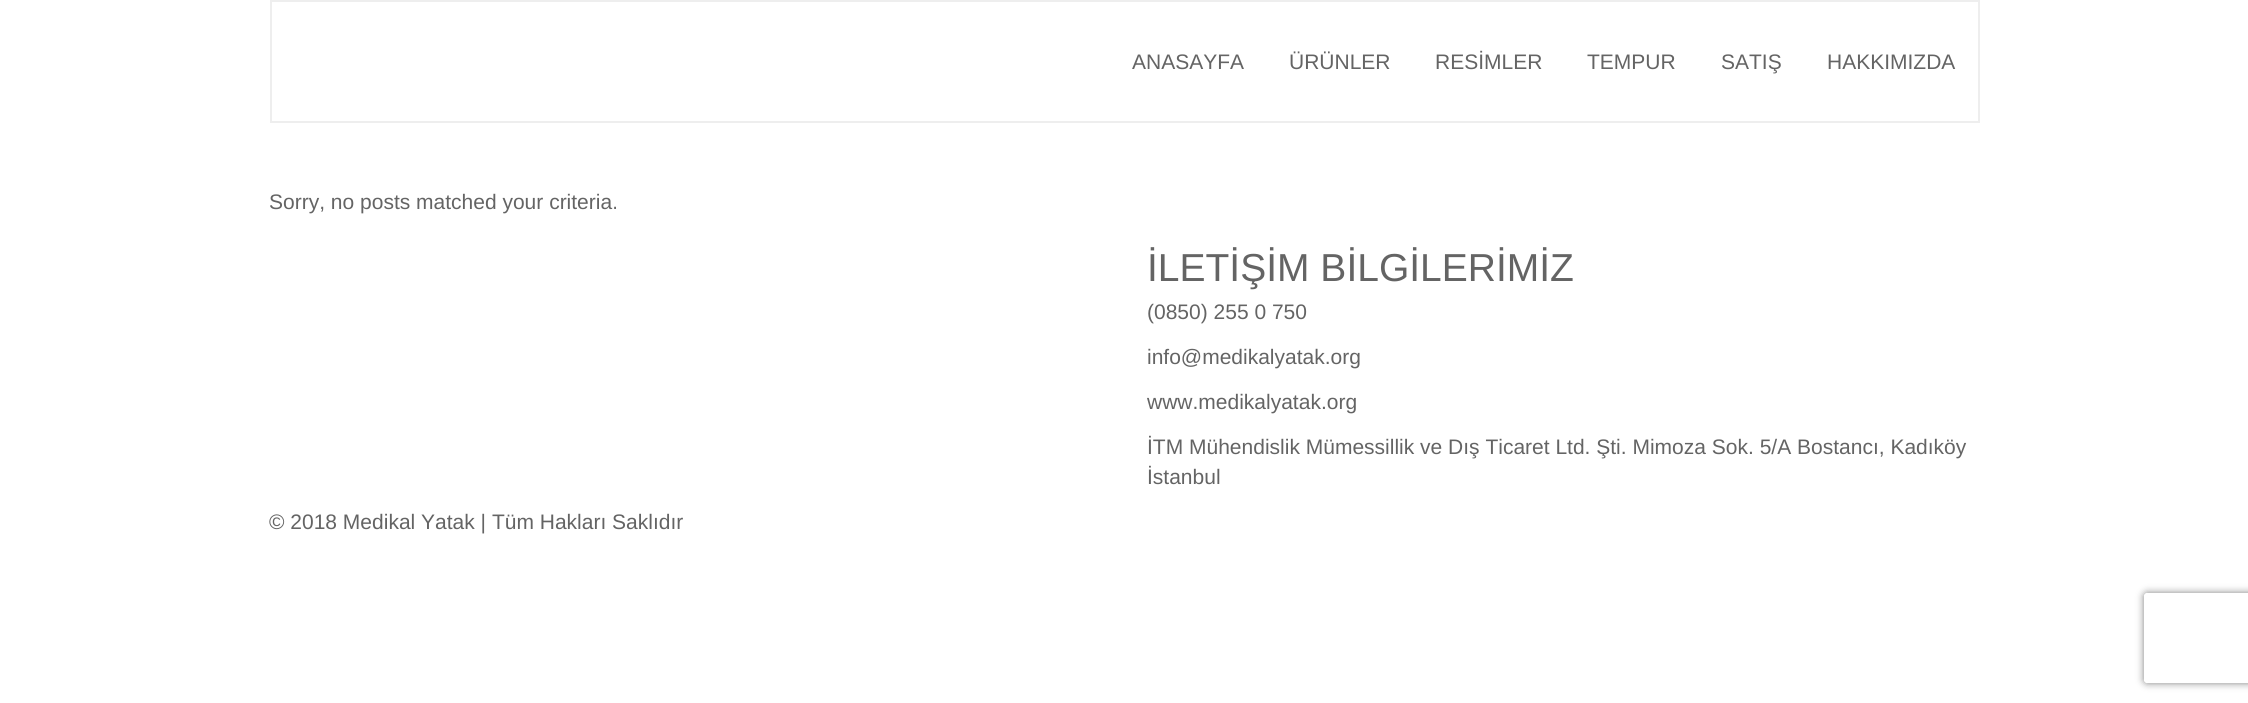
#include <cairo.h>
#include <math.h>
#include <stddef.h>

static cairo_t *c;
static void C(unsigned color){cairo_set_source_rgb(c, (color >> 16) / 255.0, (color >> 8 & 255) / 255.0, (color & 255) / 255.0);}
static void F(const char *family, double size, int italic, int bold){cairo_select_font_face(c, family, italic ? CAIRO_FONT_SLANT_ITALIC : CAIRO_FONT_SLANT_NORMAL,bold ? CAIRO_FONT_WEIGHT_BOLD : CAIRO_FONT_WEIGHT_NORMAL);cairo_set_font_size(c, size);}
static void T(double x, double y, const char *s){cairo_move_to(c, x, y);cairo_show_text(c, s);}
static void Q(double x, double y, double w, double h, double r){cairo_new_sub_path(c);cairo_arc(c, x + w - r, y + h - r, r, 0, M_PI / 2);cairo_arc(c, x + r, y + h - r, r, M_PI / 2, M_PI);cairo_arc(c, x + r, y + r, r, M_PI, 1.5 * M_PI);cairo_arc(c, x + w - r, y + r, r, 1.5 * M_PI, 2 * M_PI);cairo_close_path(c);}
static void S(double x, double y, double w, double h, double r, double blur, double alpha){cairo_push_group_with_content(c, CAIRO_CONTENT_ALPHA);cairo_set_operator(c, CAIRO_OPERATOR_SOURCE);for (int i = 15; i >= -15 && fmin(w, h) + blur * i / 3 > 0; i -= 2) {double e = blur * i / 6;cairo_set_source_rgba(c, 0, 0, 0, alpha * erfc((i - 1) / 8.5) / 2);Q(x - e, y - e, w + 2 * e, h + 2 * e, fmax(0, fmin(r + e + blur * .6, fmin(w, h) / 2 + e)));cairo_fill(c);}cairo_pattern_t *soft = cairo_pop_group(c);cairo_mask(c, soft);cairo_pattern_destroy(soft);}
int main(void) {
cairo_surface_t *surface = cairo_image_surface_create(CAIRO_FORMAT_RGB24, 2248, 703);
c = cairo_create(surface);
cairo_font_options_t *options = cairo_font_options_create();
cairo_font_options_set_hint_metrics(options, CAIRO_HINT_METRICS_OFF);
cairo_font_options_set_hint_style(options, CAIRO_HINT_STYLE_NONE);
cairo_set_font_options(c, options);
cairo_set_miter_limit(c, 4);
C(0xffffff);
cairo_paint(c);
cairo_rectangle(c,271,1,1708,121);
C(0xeeeeee);
cairo_stroke(c);
F("Liberation Sans",21,0,0);
C(0x646464);
T(1132,69,"ANASAYFA");
T(1289,69,"ÜRÜNLER");
T(1435,69,"RESİMLER");
T(1587,69,"TEMPUR");
T(1721,69,"SATIŞ");
T(1827,69,"HAKKIMIZDA");
T(269,209,"Sorry, no posts matched your criteria.");
F("Liberation Sans",39,0,0);
T(1147,281,"İLETİŞİM BİLGİLERİMİZ");
F("Liberation Sans",21,0,0);
T(1147,319,"(0850) 255 0 750");
T(1147,364,"info@medikalyatak.org");
T(1147,409,"www.medikalyatak.org");
T(1147,454,"İTM Mühendislik Mümessillik ve Dış Ticaret Ltd. Şti. Mimoza Sok. 5/A Bostancı, Kadıköy");
T(1147,484,"İstanbul");
T(269,529,"© 2018 Medikal Yatak | Tüm Hakları Saklıdır");
cairo_save(c);
cairo_set_fill_rule(c,CAIRO_FILL_RULE_EVEN_ODD);
cairo_new_path(c);
cairo_move_to(c,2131,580);
cairo_line_to(c,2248,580);
cairo_line_to(c,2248,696);
cairo_line_to(c,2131,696);
cairo_close_path(c);
cairo_move_to(c,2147,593);
cairo_line_to(c,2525,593);
cairo_curve_to(c,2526.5,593,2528,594.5,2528,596);
cairo_line_to(c,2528,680);
cairo_curve_to(c,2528,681.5,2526.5,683,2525,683);
cairo_line_to(c,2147,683);
cairo_curve_to(c,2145.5,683,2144,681.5,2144,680);
cairo_line_to(c,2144,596);
cairo_curve_to(c,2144,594.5,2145.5,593,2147,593);
cairo_close_path(c);
cairo_clip(c);
C(0x808080);
S(2144,593,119,90,3,4,1);
cairo_restore(c);
cairo_surface_write_to_png(surface, "o.png");
cairo_font_options_destroy(options);
cairo_destroy(c);
cairo_surface_destroy(surface);
return 0;
}
